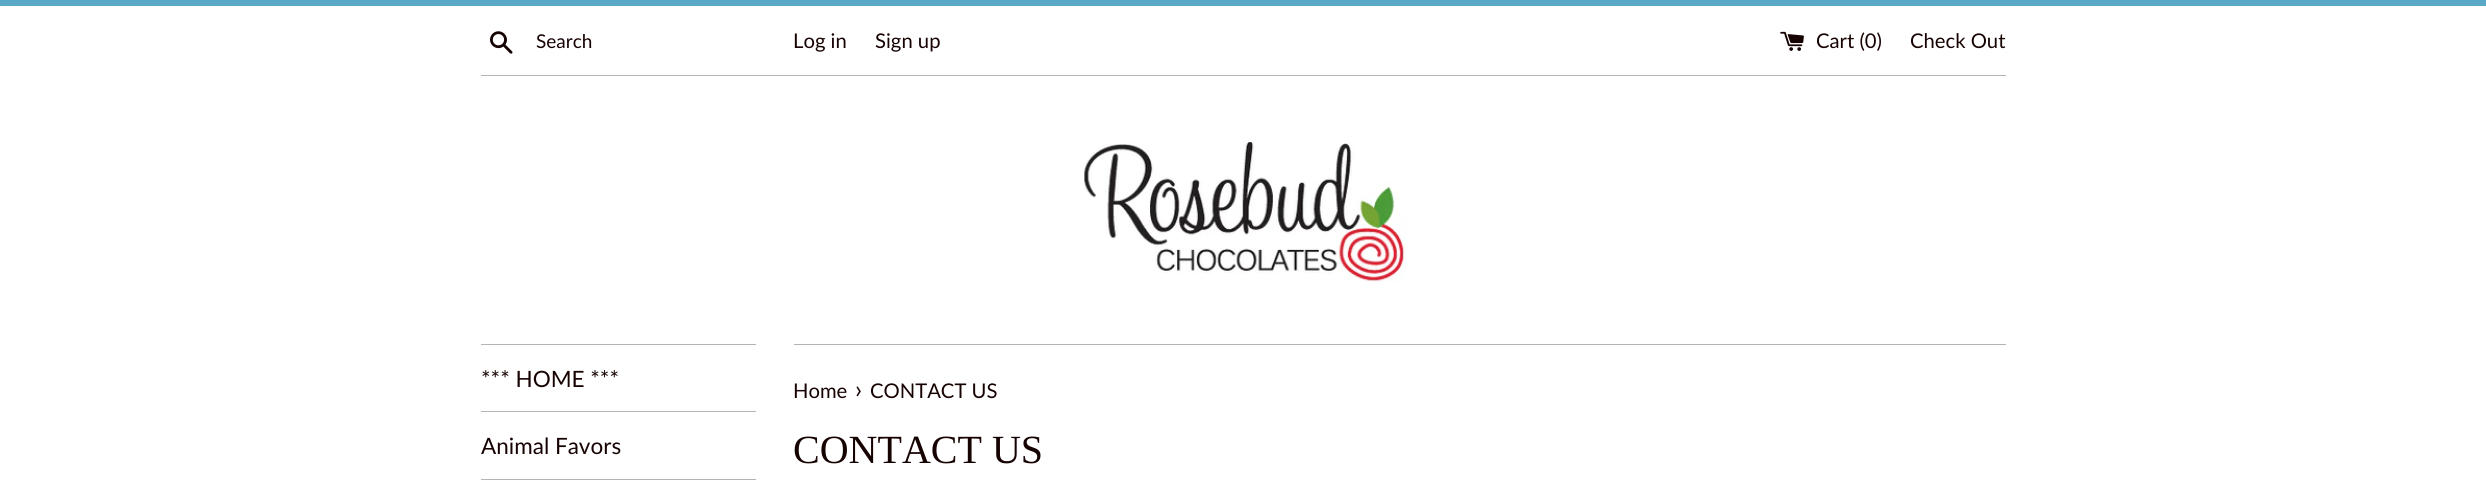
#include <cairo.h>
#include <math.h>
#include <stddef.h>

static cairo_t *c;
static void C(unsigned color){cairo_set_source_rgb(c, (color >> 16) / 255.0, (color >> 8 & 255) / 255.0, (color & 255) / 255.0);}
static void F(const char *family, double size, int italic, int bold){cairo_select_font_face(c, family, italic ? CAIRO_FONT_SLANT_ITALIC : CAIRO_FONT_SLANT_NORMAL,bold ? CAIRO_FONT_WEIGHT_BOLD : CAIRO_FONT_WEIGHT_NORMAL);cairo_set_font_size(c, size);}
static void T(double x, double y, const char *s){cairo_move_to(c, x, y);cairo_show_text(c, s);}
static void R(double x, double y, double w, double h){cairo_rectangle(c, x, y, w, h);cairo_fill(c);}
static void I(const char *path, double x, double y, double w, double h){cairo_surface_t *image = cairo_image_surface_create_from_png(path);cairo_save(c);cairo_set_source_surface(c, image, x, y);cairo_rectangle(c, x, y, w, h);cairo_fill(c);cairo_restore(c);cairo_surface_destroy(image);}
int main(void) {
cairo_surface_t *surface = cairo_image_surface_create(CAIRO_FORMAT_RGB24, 2486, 489);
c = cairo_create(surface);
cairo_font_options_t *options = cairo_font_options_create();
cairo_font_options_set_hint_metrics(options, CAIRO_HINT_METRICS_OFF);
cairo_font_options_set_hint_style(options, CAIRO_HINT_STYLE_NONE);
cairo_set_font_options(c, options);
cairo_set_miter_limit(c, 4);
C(0xffffff);
cairo_paint(c);
C(0x59a8c6);
R(0,0,2486,6);
I("1.png",490,31,23,23);
F("Lato",19,0,0);
C(0x170202);
T(536,48,"Search");
F("Lato",20.25,0,0);
T(793,48,"Log in");
T(875,48,"Sign up");
I("2.png",1780,31,24,20);
T(1816,48,"Cart (0)");
T(1910,48,"Check Out");
C(0xb4b2b2);
R(481,75,1525,1);
I("3.png",1084,142,323,140);
R(481,344,275,1);
R(481,411,275,1);
F("Lato",22.5,0,0);
C(0x170202);
T(481,387,"*** HOME ***");
C(0xb4b2b2);
R(481,479,275,1);
C(0x170202);
T(481,454,"Animal Favors");
C(0xb4b2b2);
R(794,344,1212,1);
F("Lato",20.25,0,0);
C(0x170202);
T(793,398,"Home");
F("Lato",25,0,0);
T(855,398,"›");
F("Lato",20.25,0,0);
T(870,398,"CONTACT US");
F("Liberation Serif",40,0,0);
T(793,463,"CONTACT US");
cairo_surface_write_to_png(surface, "o.png");
cairo_font_options_destroy(options);
cairo_destroy(c);
cairo_surface_destroy(surface);
return 0;
}
